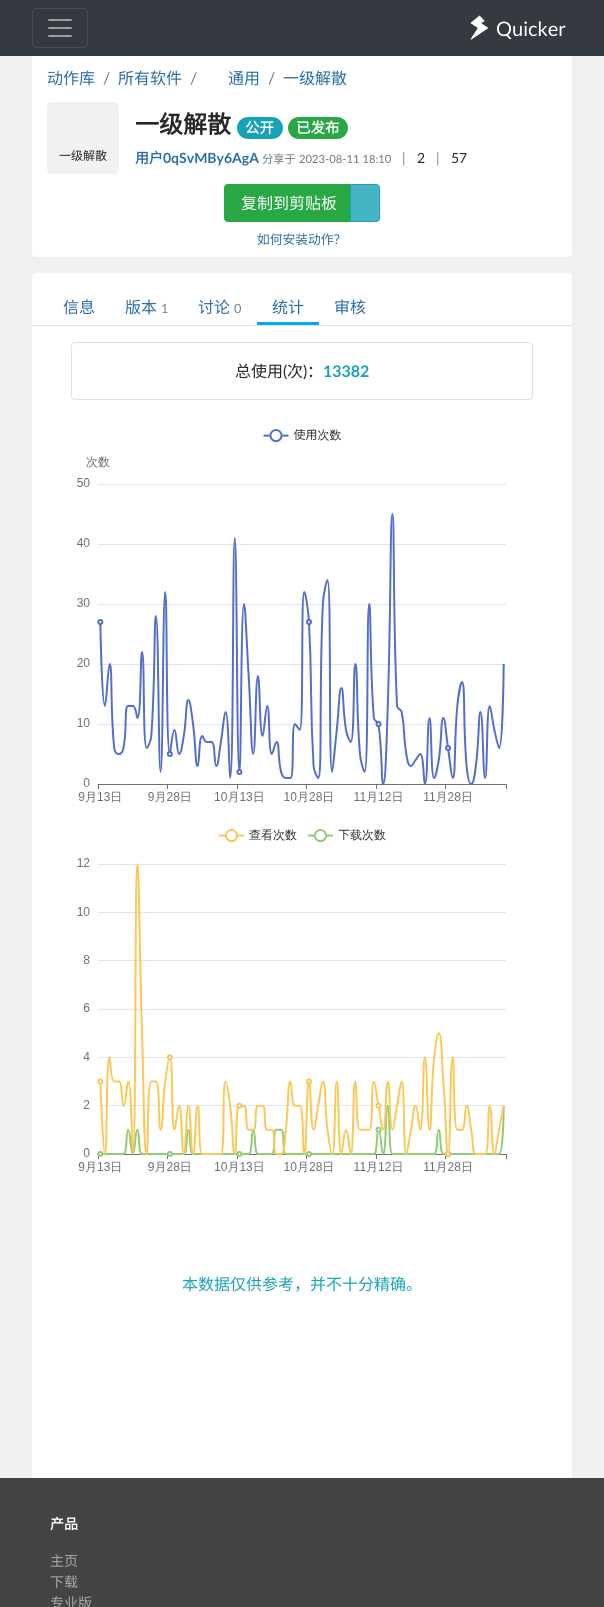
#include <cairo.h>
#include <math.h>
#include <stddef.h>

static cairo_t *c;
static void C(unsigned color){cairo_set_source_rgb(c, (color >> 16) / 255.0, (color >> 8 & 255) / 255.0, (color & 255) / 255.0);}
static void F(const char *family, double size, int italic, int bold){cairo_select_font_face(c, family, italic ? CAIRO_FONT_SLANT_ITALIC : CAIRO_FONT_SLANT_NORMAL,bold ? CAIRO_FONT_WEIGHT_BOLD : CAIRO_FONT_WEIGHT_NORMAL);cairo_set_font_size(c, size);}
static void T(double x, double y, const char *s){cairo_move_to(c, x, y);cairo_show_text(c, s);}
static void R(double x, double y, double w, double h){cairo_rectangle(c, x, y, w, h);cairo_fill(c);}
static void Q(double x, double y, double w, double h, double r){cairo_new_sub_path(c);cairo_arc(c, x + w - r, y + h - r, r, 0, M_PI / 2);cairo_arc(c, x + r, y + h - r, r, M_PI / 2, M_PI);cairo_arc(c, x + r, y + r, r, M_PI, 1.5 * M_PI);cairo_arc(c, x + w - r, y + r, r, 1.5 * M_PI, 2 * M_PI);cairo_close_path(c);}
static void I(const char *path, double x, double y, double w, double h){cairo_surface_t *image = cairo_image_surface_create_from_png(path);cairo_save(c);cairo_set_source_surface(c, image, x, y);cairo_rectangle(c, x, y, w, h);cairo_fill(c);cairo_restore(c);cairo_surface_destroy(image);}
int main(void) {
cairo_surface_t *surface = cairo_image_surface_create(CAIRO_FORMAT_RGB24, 604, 1607);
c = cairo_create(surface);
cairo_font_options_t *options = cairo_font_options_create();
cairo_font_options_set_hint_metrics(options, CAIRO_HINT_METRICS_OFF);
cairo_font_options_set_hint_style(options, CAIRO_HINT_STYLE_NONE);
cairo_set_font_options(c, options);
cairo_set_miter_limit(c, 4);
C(0xf0f0f0);
cairo_paint(c);
C(0xffffff);
cairo_new_path(c);
cairo_move_to(c,32,54);
cairo_line_to(c,572,54);
cairo_line_to(c,572,253);
cairo_curve_to(c,572,255,570,257,568,257);
cairo_line_to(c,36,257);
cairo_curve_to(c,34,257,32,255,32,253);
cairo_close_path(c);
cairo_fill(c);
C(0x343a40);
R(0,0,604,56);
Q(32.5,8.5,55,39,3.5);
C(0x484e53);
cairo_set_line_width(c,1);
cairo_stroke(c);
I("1.png",48,19,24,18);
I("2.png",470,15,18,25);
F("Lato",20,0,0);
C(0xffffff);
T(496,36,"Quicker");
F("Noto Sans CJK SC",16,0,0);
C(0x286da8);
T(47,84,"动作库");
F("Lato",16,0,0);
C(0x6c757d);
T(103,84,"/");
F("Noto Sans CJK SC",16,0,0);
C(0x286da8);
T(118,84,"所有软件");
F("Lato",16,0,0);
C(0x6c757d);
T(190,84,"/");
F("Noto Sans CJK SC",16,0,0);
C(0x286da8);
T(228,84,"通用");
F("Lato",16,0,0);
C(0x6c757d);
T(268,84,"/");
F("Noto Sans CJK SC",16,0,0);
C(0x286da8);
T(283,84,"一级解散");
C(0xf1f1f1);
Q(47,102,72,72,4);
cairo_fill(c);
F("Noto Sans CJK SC",12,0,0);
C(0x262626);
T(59,160,"一级解散");
F("Noto Sans CJK SC",24,0,1);
T(135,133,"一级解散");
C(0x17a2b8);
Q(237,117,46,22,11);
cairo_fill(c);
F("Noto Sans CJK SC",14.5,0,1);
C(0xffffff);
T(245,133,"公开");
C(0x28a745);
Q(288,117,60,22,11);
cairo_fill(c);
C(0xffffff);
T(296,133,"已发布");
F("Noto Sans CJK SC",14,0,1);
C(0x286da8);
T(135,163,"用户");
F("Lato",14,0,1);
T(163,163,"0qSvMBy6AgA");
F("Noto Sans CJK SC",11.25,0,0);
C(0x6c757d);
T(262,163,"分享于");
F("Lato",11.25,0,0);
T(299,163,"2023-08-11 18:10");
F("Lato",14,0,0);
C(0x808080);
T(402,163,"|");
C(0x262626);
T(417,163,"2");
C(0x808080);
T(436,163,"|");
C(0x262626);
T(451,163,"57");
C(0x28a745);
cairo_new_path(c);
cairo_move_to(c,228,184.5);
cairo_line_to(c,350.5,184.5);
cairo_line_to(c,350.5,221.5);
cairo_line_to(c,228,221.5);
cairo_curve_to(c,226,221.5,224.5,220,224.5,218);
cairo_line_to(c,224.5,188);
cairo_curve_to(c,224.5,186,226,184.5,228,184.5);
cairo_close_path(c);
cairo_fill_preserve(c);
cairo_stroke(c);
F("Noto Sans CJK SC",16,0,0);
C(0xffffff);
T(241,209,"复制到剪贴板");
cairo_set_source_rgba(c,0.09,0.635,0.722,0.8);
cairo_new_path(c);
cairo_move_to(c,350,184);
cairo_line_to(c,376,184);
cairo_curve_to(c,378,184,380,186,380,188);
cairo_line_to(c,380,218);
cairo_curve_to(c,380,220,378,222,376,222);
cairo_line_to(c,350,222);
cairo_close_path(c);
cairo_fill(c);
cairo_new_path(c);
cairo_move_to(c,350.5,184.5);
cairo_line_to(c,376,184.5);
cairo_curve_to(c,378,184.5,379.5,186,379.5,188);
cairo_line_to(c,379.5,218);
cairo_curve_to(c,379.5,220,378,221.5,376,221.5);
cairo_line_to(c,350.5,221.5);
cairo_close_path(c);
cairo_stroke(c);
F("Noto Sans CJK SC",12.75,0,0);
C(0x286da8);
T(257,244,"如何安装动作？");
C(0xffffff);
cairo_new_path(c);
cairo_move_to(c,36,273);
cairo_line_to(c,568,273);
cairo_curve_to(c,570,273,572,275,572,277);
cairo_line_to(c,572,1478);
cairo_line_to(c,32,1478);
cairo_line_to(c,32,277);
cairo_curve_to(c,32,275,34,273,36,273);
cairo_close_path(c);
cairo_fill(c);
C(0xdee2e6);
R(32,325,540,1);
F("Noto Sans CJK SC",16,0,0);
C(0x286da8);
T(63,313,"信息");
T(125,313,"版本");
F("Lato",12.75,0,0);
C(0x808080);
T(161,313,"1");
F("Noto Sans CJK SC",16,0,0);
C(0x286da8);
T(198,313,"讨论");
F("Lato",12.75,0,0);
C(0x808080);
T(234,313,"0");
C(0x03a9f4);
R(257,322,62,3);
F("Noto Sans CJK SC",16,0,0);
C(0x286da8);
T(272,313,"统计");
T(334,313,"审核");
Q(71.5,342.5,461,57,3.5);
C(0xdee2e6);
cairo_stroke(c);
C(0x262626);
T(235,377,"总使用");
F("Lato",16,0,0);
T(283,377,"(");
F("Noto Sans CJK SC",16,0,0);
T(287,377,"次");
F("Lato",16,0,0);
T(303,377,")");
F("Noto Sans CJK SC",16,0,0);
T(307,377,"：");
F("Lato",16,0,1);
C(0x17a2b8);
T(323,377,"13382");
I("3.png",77,429,430,744);
F("Noto Sans CJK SC",16,0,0);
T(182,1290,"本数据仅供参考，并不十分精确。");
C(0x444444);
R(0,1478,604,129);
F("Noto Sans CJK SC",14,0,1);
C(0xffffff);
T(50,1529,"产品");
F("Noto Sans CJK SC",14,0,0);
C(0xaaaaaa);
T(50,1566,"主页");
T(50,1587,"下载");
T(50,1608,"专业版");
cairo_surface_write_to_png(surface, "o.png");
cairo_font_options_destroy(options);
cairo_destroy(c);
cairo_surface_destroy(surface);
return 0;
}
